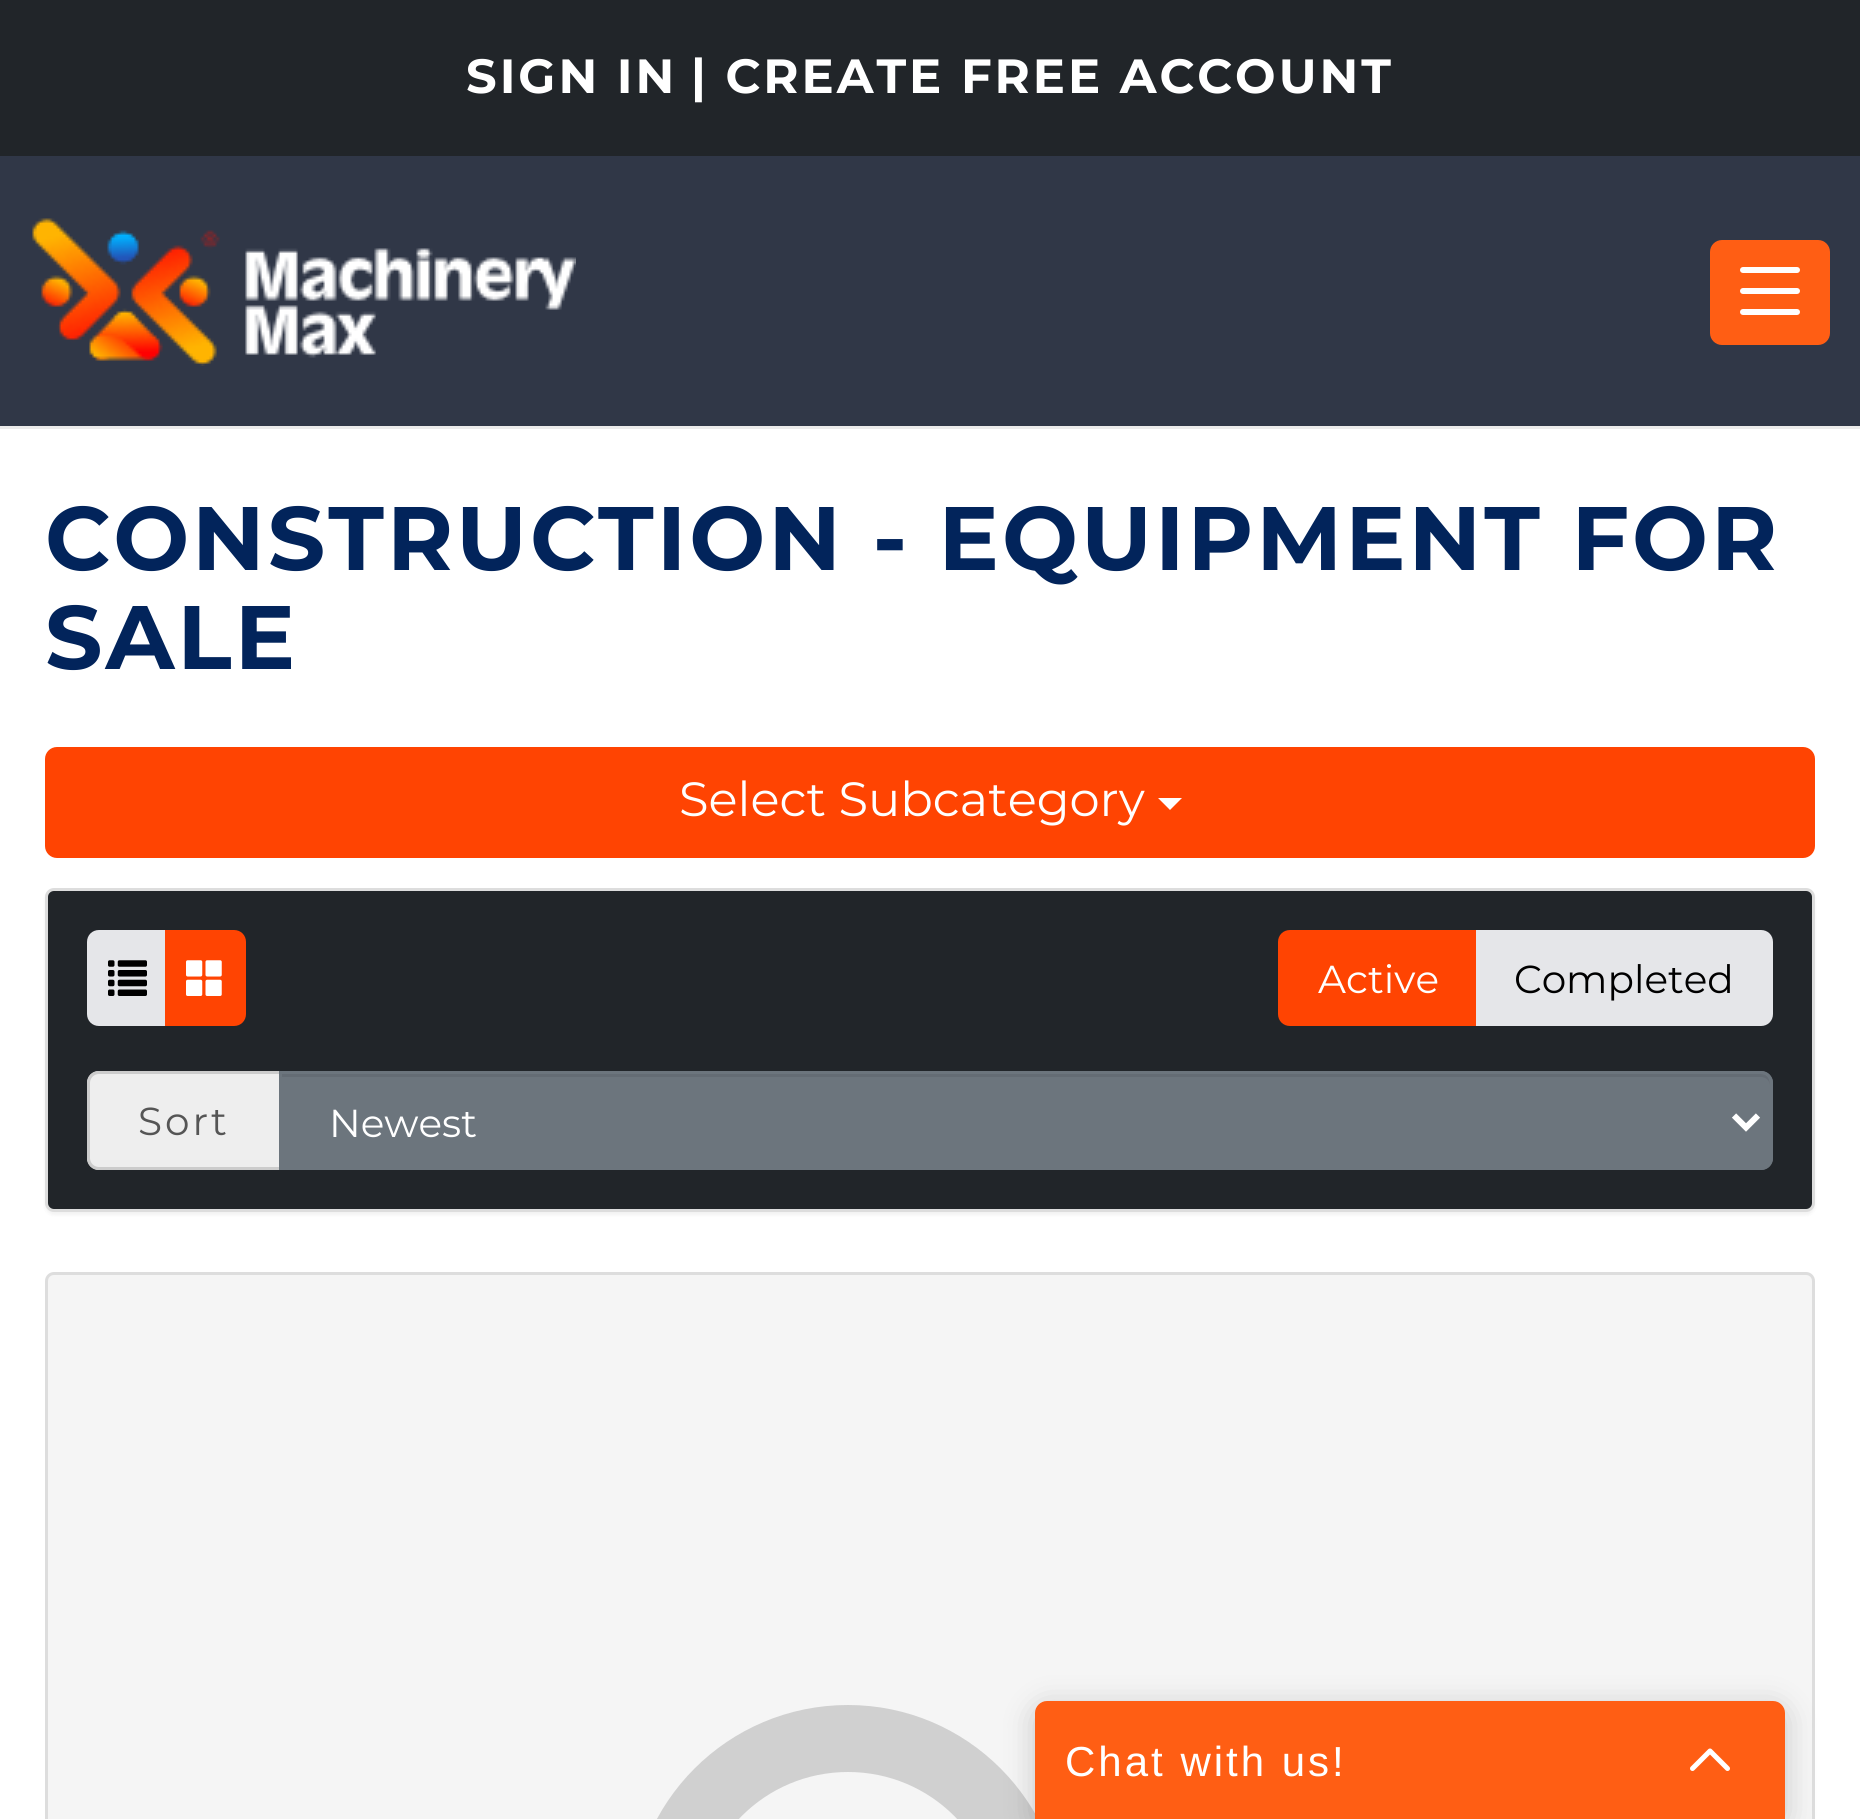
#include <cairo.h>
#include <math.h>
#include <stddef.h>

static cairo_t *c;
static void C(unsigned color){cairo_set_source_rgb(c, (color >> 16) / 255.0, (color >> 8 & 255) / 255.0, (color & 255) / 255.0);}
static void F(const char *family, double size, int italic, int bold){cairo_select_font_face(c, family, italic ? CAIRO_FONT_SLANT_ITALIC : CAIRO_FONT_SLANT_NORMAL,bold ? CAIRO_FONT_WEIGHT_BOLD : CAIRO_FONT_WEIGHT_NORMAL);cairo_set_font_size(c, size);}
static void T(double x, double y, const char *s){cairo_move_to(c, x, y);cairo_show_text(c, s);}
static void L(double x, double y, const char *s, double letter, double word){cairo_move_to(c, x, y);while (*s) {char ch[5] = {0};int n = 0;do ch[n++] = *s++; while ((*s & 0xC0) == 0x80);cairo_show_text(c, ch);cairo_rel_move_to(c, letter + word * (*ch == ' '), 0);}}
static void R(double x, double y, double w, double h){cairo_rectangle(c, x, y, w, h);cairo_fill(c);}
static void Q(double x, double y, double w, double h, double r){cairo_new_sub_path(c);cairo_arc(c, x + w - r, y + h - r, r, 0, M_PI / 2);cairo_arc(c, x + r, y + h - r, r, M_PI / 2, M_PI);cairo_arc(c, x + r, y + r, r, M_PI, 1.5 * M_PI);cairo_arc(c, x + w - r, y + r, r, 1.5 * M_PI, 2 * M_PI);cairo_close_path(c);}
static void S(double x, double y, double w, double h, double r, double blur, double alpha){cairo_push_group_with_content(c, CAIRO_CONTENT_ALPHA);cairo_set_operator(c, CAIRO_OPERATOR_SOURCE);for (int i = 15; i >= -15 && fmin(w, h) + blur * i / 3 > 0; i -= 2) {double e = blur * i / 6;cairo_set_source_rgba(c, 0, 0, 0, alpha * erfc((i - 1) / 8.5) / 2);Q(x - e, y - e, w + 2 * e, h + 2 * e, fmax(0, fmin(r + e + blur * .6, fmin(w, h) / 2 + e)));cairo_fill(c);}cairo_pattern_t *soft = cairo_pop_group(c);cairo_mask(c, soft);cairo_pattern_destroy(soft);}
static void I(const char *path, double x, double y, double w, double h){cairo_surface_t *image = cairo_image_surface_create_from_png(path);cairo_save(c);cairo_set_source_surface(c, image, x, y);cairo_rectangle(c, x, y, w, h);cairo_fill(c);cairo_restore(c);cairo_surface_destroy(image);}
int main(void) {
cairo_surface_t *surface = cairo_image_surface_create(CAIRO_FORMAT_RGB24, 1860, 1819);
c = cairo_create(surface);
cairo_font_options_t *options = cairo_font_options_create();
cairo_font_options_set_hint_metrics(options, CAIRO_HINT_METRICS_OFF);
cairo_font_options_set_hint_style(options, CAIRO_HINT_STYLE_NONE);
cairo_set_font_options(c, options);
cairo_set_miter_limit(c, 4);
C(0xffffff);
cairo_paint(c);
C(0x303747);
R(0,156,1860,270);
C(0x212529);
R(0,0,1860,156);
F("Montserrat",48,0,1);
C(0xffffff);
L(466,93,"SIGN IN",3,0);
L(691,93,"| CREATE FREE ACCOUNT",3,0);
C(0xebebeb);
R(0,426,1860,3);
I("1.png",32,218,544,148);
C(0xff5e14);
Q(1710,240,120,105,12);
cairo_fill(c);
C(0xffffff);
Q(1740,267,60,6,3);
cairo_fill(c);
Q(1740,288,60,6,3);
cairo_fill(c);
Q(1740,309,60,6,3);
cairo_fill(c);
F("Montserrat",90,0,1);
C(0x02245b);
L(45,570,"CONSTRUCTION - EQUIPMENT FOR",3,0);
L(45,669,"SALE",3,0);
C(0xff4402);
Q(46.5,748.5,1767,108,10.5);
cairo_fill_preserve(c);
cairo_set_line_width(c,3);
cairo_stroke(c);
F("Montserrat",48,0,0);
C(0xffffff);
T(679,816,"Select Subcategory");
cairo_new_path(c);
cairo_move_to(c,1158,798);
cairo_line_to(c,1182,798);
cairo_line_to(c,1170,810);
cairo_close_path(c);
cairo_fill(c);
C(0x000000);
S(45,891,1770,324,9,1.5,.05);
C(0x212529);
Q(46.5,889.5,1767,321,7.5);
cairo_fill_preserve(c);
C(0xdddddd);
cairo_stroke(c);
C(0xe5e6e9);
cairo_new_path(c);
cairo_move_to(c,99,931.5);
cairo_line_to(c,166.5,931.5);
cairo_line_to(c,166.5,1024.5);
cairo_line_to(c,99,1024.5);
cairo_curve_to(c,93,1024.5,88.5,1020,88.5,1014);
cairo_line_to(c,88.5,942);
cairo_curve_to(c,88.5,936,93,931.5,99,931.5);
cairo_close_path(c);
cairo_fill_preserve(c);
cairo_stroke(c);
I("2.png",108,960,39,36);
C(0xff4402);
cairo_new_path(c);
cairo_move_to(c,166.5,931.5);
cairo_line_to(c,234,931.5);
cairo_curve_to(c,240,931.5,244.5,936,244.5,942);
cairo_line_to(c,244.5,1014);
cairo_curve_to(c,244.5,1020,240,1024.5,234,1024.5);
cairo_line_to(c,166.5,1024.5);
cairo_close_path(c);
cairo_fill_preserve(c);
cairo_stroke(c);
I("3.png",186,960,36,36);
cairo_new_path(c);
cairo_move_to(c,1290,931.5);
cairo_line_to(c,1477.5,931.5);
cairo_line_to(c,1477.5,1024.5);
cairo_line_to(c,1290,1024.5);
cairo_curve_to(c,1284,1024.5,1279.5,1020,1279.5,1014);
cairo_line_to(c,1279.5,942);
cairo_curve_to(c,1279.5,936,1284,931.5,1290,931.5);
cairo_close_path(c);
cairo_fill_preserve(c);
cairo_stroke(c);
F("Montserrat",39,0,0);
C(0xffffff);
T(1318,993,"Active");
C(0xe5e6e9);
cairo_new_path(c);
cairo_move_to(c,1477.5,931.5);
cairo_line_to(c,1761,931.5);
cairo_curve_to(c,1767,931.5,1771.5,936,1771.5,942);
cairo_line_to(c,1771.5,1014);
cairo_curve_to(c,1771.5,1020,1767,1024.5,1761,1024.5);
cairo_line_to(c,1477.5,1024.5);
cairo_close_path(c);
cairo_fill_preserve(c);
cairo_stroke(c);
C(0x000000);
T(1514,993,"Completed");
C(0xeeeeee);
cairo_new_path(c);
cairo_move_to(c,99,1071);
cairo_line_to(c,279,1071);
cairo_line_to(c,279,1170);
cairo_line_to(c,99,1170);
cairo_curve_to(c,92.5,1170,87,1164.5,87,1158);
cairo_line_to(c,87,1083);
cairo_curve_to(c,87,1076.5,92.5,1071,99,1071);
cairo_close_path(c);
cairo_fill(c);
C(0xcccccc);
cairo_set_fill_rule(c,CAIRO_FILL_RULE_EVEN_ODD);
cairo_new_path(c);
cairo_move_to(c,99,1071);
cairo_line_to(c,279,1071);
cairo_line_to(c,279,1170);
cairo_line_to(c,99,1170);
cairo_curve_to(c,92,1170,87,1165,87,1158);
cairo_line_to(c,87,1083);
cairo_curve_to(c,87,1076,92,1071,99,1071);
cairo_close_path(c);
cairo_move_to(c,99,1074);
cairo_line_to(c,279,1074);
cairo_line_to(c,279,1167);
cairo_line_to(c,99,1167);
cairo_curve_to(c,94,1167,90,1163,90,1158);
cairo_line_to(c,90,1083);
cairo_curve_to(c,90,1078,94,1074,99,1074);
cairo_close_path(c);
cairo_fill(c);
C(0x555555);
L(138,1135,"Sort",3,0);
C(0x6c757d);
cairo_new_path(c);
cairo_move_to(c,279,1071);
cairo_line_to(c,1761,1071);
cairo_curve_to(c,1767.5,1071,1773,1076.5,1773,1083);
cairo_line_to(c,1773,1158);
cairo_curve_to(c,1773,1164.5,1767.5,1170,1761,1170);
cairo_line_to(c,279,1170);
cairo_close_path(c);
cairo_fill(c);
C(0x646c74);
cairo_set_fill_rule(c,CAIRO_FILL_RULE_WINDING);
cairo_new_path(c);
cairo_move_to(c,282,1077);
cairo_line_to(c,1761,1077);
cairo_curve_to(c,1766,1077,1770,1081,1770,1086);
cairo_curve_to(c,1770,1080,1768,1074,1761,1074);
cairo_line_to(c,282,1074);
cairo_close_path(c);
cairo_fill(c);
cairo_new_path(c);
cairo_move_to(c,280.5,1072.5);
cairo_line_to(c,1761,1072.5);
cairo_curve_to(c,1767,1072.5,1771.5,1077,1771.5,1083);
cairo_line_to(c,1771.5,1158);
cairo_curve_to(c,1771.5,1164,1767,1168.5,1761,1168.5);
cairo_line_to(c,280.5,1168.5);
cairo_close_path(c);
C(0x6c757d);
cairo_stroke(c);
cairo_new_path(c);
cairo_move_to(c,1734,1115.5);
cairo_line_to(c,1746,1127.5);
cairo_line_to(c,1758,1115.5);
C(0xffffff);
cairo_set_line_width(c,6);
cairo_stroke(c);
T(329,1137,"Newest");
C(0xf5f5f5);
Q(46.5,1273.5,1767,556,7.5);
cairo_fill_preserve(c);
C(0xdddddd);
cairo_set_line_width(c,3);
cairo_stroke(c);
C(0xd0d0d0);
cairo_new_path(c);
cairo_move_to(c,1048,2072);
cairo_line_to(c,1021,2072);
cairo_line_to(c,1012,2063);
cairo_curve_to(c,1045,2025,1064,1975,1064,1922);
cairo_curve_to(c,1064,1802,967,1705,848,1705);
cairo_curve_to(c,728,1705,631,1802,631,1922);
cairo_curve_to(c,631,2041,728,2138,848,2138);
cairo_curve_to(c,901,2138,951,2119,989,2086);
cairo_line_to(c,998,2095);
cairo_line_to(c,998,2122);
cairo_line_to(c,1164,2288);
cairo_line_to(c,1214,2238);
cairo_close_path(c);
cairo_move_to(c,848,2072);
cairo_curve_to(c,765,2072,698,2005,698,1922);
cairo_curve_to(c,698,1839,765,1772,848,1772);
cairo_curve_to(c,931,1772,998,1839,998,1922);
cairo_curve_to(c,998,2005,931,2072,848,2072);
cairo_close_path(c);
cairo_fill(c);
C(0x000000);
S(1035,1707,750,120,12,15,.2);
C(0xff5e14);
cairo_new_path(c);
cairo_move_to(c,1047,1701);
cairo_line_to(c,1773,1701);
cairo_curve_to(c,1779.5,1701,1785,1706.5,1785,1713);
cairo_line_to(c,1785,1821);
cairo_line_to(c,1035,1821);
cairo_line_to(c,1035,1713);
cairo_curve_to(c,1035,1706.5,1040.5,1701,1047,1701);
cairo_close_path(c);
cairo_fill(c);
F("Liberation Sans",42,0,0);
C(0xffffff);
L(1065,1776,"Chat with us!",3,0);
cairo_new_path(c);
cairo_move_to(c,1692.5,1768.5);
cairo_line_to(c,1710,1751);
cairo_line_to(c,1727.5,1768.5);
cairo_set_line_width(c,5);
cairo_set_line_cap(c,CAIRO_LINE_CAP_ROUND);
cairo_set_line_join(c,CAIRO_LINE_JOIN_ROUND);
cairo_stroke(c);
cairo_surface_write_to_png(surface, "o.png");
cairo_font_options_destroy(options);
cairo_destroy(c);
cairo_surface_destroy(surface);
return 0;
}
